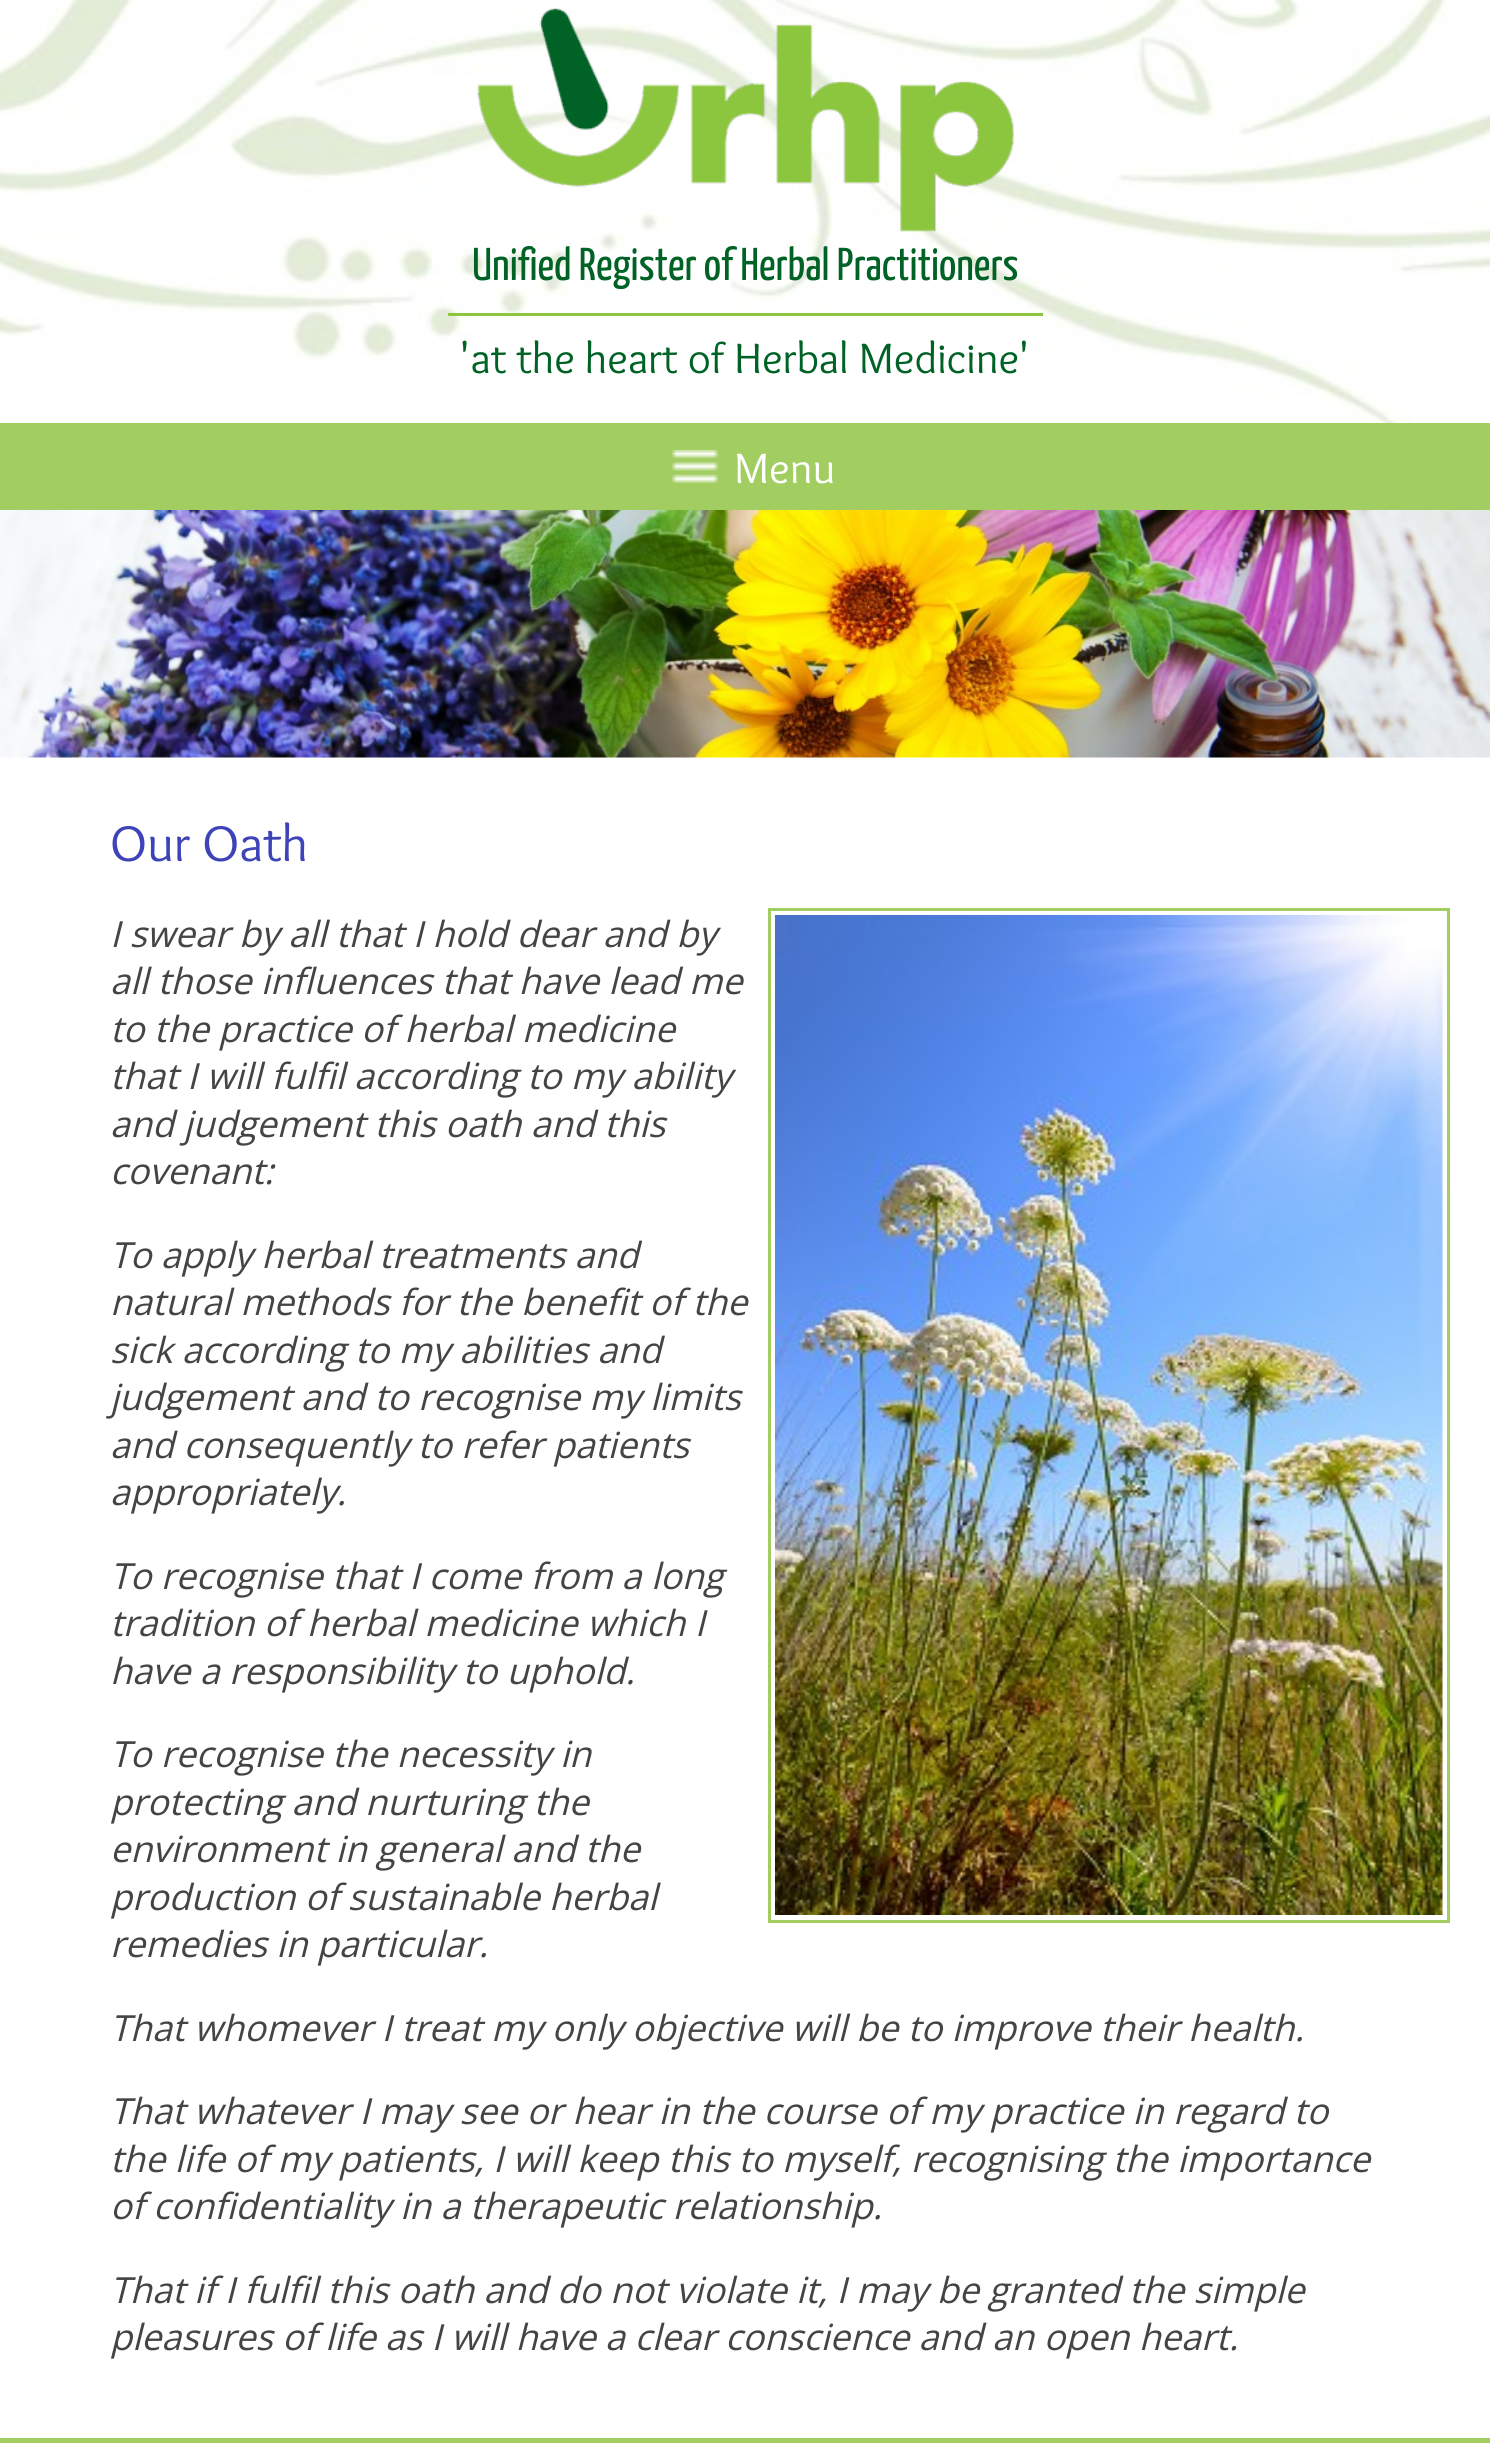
#include <cairo.h>
#include <math.h>
#include <stddef.h>

static cairo_t *c;
static void C(unsigned color){cairo_set_source_rgb(c, (color >> 16) / 255.0, (color >> 8 & 255) / 255.0, (color & 255) / 255.0);}
static void F(const char *family, double size, int italic, int bold){cairo_select_font_face(c, family, italic ? CAIRO_FONT_SLANT_ITALIC : CAIRO_FONT_SLANT_NORMAL,bold ? CAIRO_FONT_WEIGHT_BOLD : CAIRO_FONT_WEIGHT_NORMAL);cairo_set_font_size(c, size);}
static void T(double x, double y, const char *s){cairo_move_to(c, x, y);cairo_show_text(c, s);}
static void R(double x, double y, double w, double h){cairo_rectangle(c, x, y, w, h);cairo_fill(c);}
static void I(const char *path, double x, double y, double w, double h){cairo_surface_t *image = cairo_image_surface_create_from_png(path);cairo_save(c);cairo_set_source_surface(c, image, x, y);cairo_rectangle(c, x, y, w, h);cairo_fill(c);cairo_restore(c);cairo_surface_destroy(image);}
int main(void) {
cairo_surface_t *surface = cairo_image_surface_create(CAIRO_FORMAT_RGB24, 1490, 2443);
c = cairo_create(surface);
cairo_font_options_t *options = cairo_font_options_create();
cairo_font_options_set_hint_metrics(options, CAIRO_HINT_METRICS_OFF);
cairo_font_options_set_hint_style(options, CAIRO_HINT_STYLE_NONE);
cairo_set_font_options(c, options);
cairo_set_miter_limit(c, 4);
C(0xffffff);
cairo_paint(c);
I("1.png",0,0,1490,423);
I("2.png",477,8,537,224);
F("Yanone Kaffeesatz ExtraLight",46,0,0);
C(0x006225);
T(472,280,"Unified Register of Herbal Practitioners");
C(0x8cc63f);
R(448,313,595,3);
F("Overlock",44,0,0);
C(0x006225);
T(460,373,"'at the heart of Herbal Medicine'");
C(0xa1cd61);
R(0,423,1490,87);
I("3.png",671,450,48,33);
C(0xffffff);
T(734,483,"Menu");
I("4.png",0,510,1490,248);
F("Overlock",52,0,0);
C(0x3e43b8);
T(110,861,"Our Oath");
cairo_rectangle(c,769.5,909.5,679,1012);
C(0xa1cd61);
cairo_set_line_width(c,3);
cairo_stroke(c);
I("5.png",775,915,668,1000);
F("Open Sans",36,1,0);
C(0x444444);
T(110,947,"I swear by all that I hold dear and by");
T(110,994,"all those influences that have lead me");
T(110,1042,"to the practice of herbal medicine");
T(110,1089,"that I will fulfil according to my ability");
T(110,1137,"and judgement this oath and this");
T(110,1184,"covenant:");
T(110,1268,"To apply herbal treatments and");
T(110,1315,"natural methods for the benefit of the");
T(110,1363,"sick according to my abilities and");
T(110,1410,"judgement and to recognise my limits");
T(110,1458,"and consequently to refer patients");
T(110,1505,"appropriately.");
T(110,1589,"To recognise that I come from a long");
T(110,1636,"tradition of herbal medicine which I");
T(110,1684,"have a responsibility to uphold.");
T(110,1767,"To recognise the necessity in");
T(110,1815,"protecting and nurturing the");
T(110,1862,"environment in general and the");
T(110,1910,"production of sustainable herbal");
T(110,1957,"remedies in particular.");
T(110,2041,"That whomever I treat my only objective will be to improve their health.");
T(110,2124,"That whatever I may see or hear in the course of my practice in regard to");
T(110,2172,"the life of my patients, I will keep this to myself, recognising the importance");
T(110,2219,"of confidentiality in a therapeutic relationship.");
T(110,2303,"That if I fulfil this oath and do not violate it, I may be granted the simple");
T(110,2350,"pleasures of life as I will have a clear conscience and an open heart.");
C(0xa1cd61);
R(0,2438,1490,5);
cairo_surface_write_to_png(surface, "o.png");
cairo_font_options_destroy(options);
cairo_destroy(c);
cairo_surface_destroy(surface);
return 0;
}
